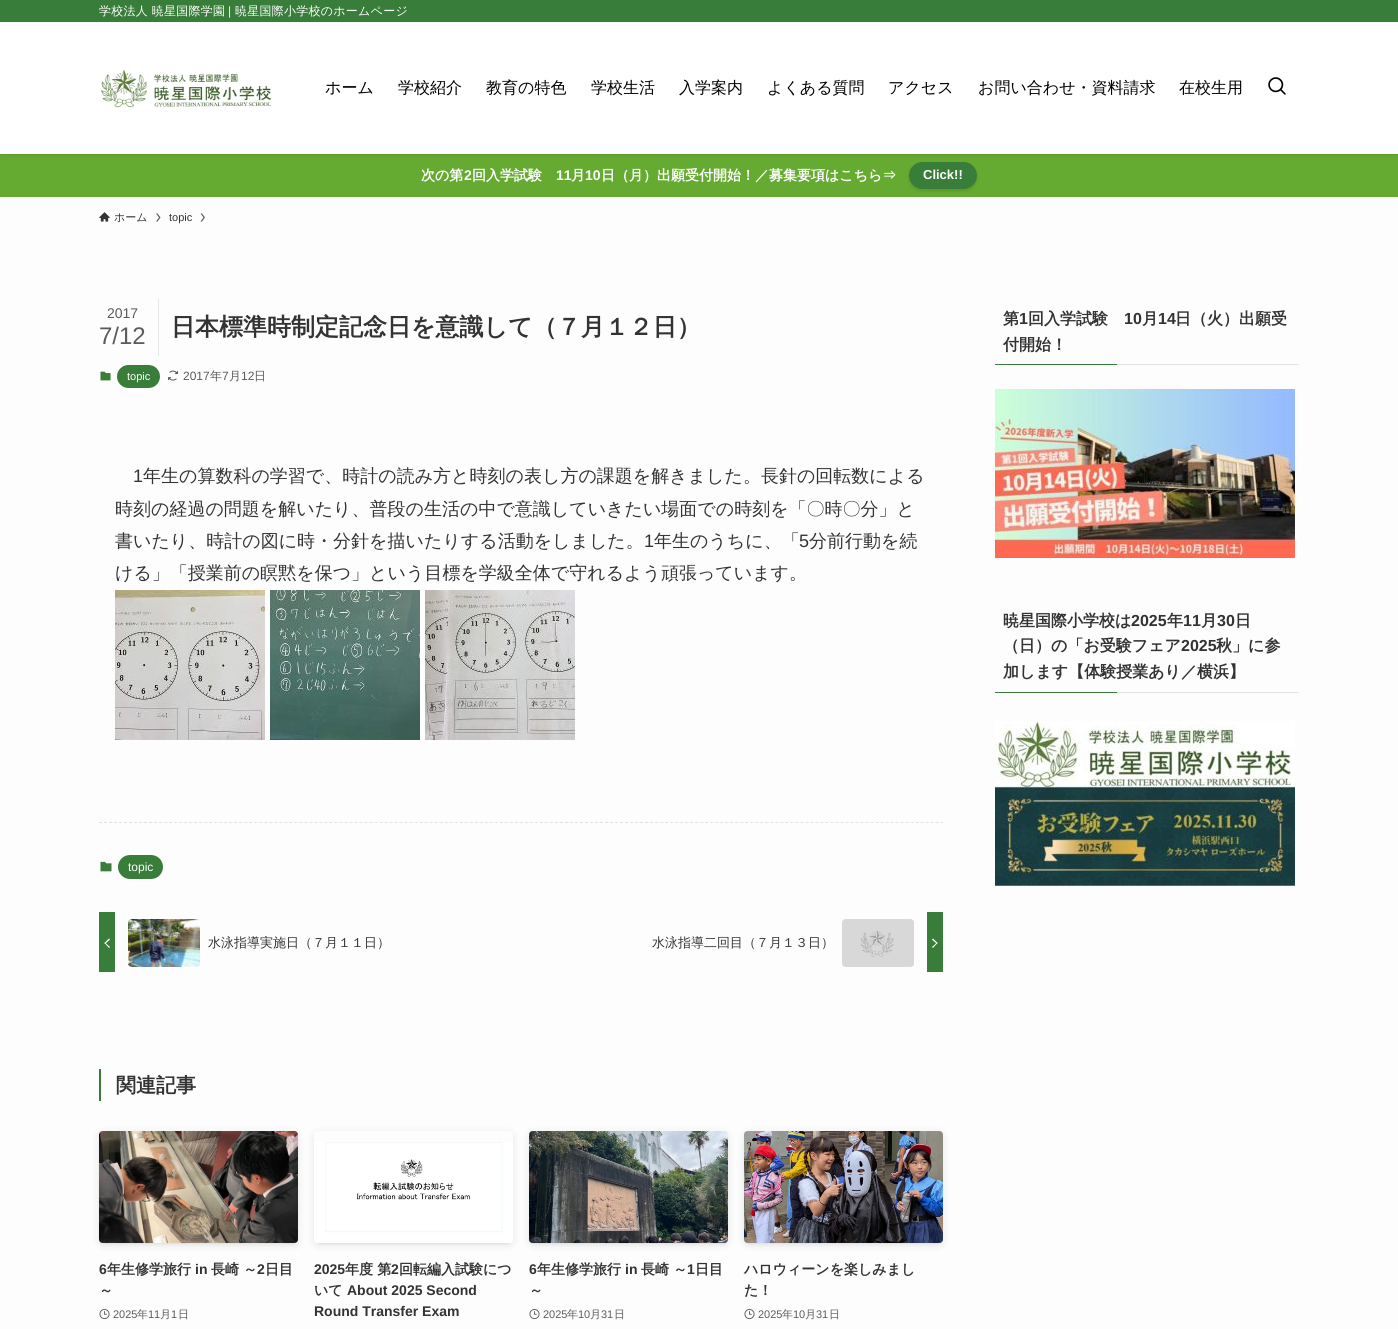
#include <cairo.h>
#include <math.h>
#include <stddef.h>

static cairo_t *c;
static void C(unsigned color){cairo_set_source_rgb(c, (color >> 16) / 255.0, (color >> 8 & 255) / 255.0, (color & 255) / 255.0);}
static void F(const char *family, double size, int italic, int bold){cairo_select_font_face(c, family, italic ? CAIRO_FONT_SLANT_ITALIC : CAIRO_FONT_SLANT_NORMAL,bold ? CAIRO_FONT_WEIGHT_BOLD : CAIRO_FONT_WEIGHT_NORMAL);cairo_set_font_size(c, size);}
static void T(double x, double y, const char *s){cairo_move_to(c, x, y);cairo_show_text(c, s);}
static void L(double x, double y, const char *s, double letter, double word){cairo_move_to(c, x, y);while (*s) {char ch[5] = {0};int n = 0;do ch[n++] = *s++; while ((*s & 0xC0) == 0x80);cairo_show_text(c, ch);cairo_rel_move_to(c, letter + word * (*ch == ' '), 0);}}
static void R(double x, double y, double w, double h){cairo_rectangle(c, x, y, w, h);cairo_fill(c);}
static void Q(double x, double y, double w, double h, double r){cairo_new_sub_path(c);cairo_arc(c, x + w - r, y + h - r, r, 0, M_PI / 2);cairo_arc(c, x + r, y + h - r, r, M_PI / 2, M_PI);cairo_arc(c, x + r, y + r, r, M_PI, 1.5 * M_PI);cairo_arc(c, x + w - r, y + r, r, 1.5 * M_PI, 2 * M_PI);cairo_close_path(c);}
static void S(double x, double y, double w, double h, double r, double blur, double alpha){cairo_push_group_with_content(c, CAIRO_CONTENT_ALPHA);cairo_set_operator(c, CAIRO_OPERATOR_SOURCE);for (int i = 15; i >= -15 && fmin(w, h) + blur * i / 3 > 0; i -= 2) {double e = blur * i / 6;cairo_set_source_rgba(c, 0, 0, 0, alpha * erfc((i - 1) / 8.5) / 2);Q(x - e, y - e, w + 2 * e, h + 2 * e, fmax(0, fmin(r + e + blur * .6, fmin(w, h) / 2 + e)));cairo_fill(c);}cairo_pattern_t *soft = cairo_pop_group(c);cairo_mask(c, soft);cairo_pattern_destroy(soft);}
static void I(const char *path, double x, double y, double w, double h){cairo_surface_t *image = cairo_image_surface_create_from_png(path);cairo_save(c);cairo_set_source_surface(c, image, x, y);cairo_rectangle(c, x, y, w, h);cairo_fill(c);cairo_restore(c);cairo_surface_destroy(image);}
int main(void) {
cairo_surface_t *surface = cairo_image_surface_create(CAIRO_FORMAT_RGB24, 1398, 1329);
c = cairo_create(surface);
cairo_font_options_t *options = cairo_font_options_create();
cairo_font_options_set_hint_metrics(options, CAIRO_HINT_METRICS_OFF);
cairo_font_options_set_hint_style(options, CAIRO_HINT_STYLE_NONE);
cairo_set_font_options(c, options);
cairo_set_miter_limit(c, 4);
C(0xfdfdfd);
cairo_paint(c);
C(0x65ab31);
R(0,154,1398,43);
C(0x000000);
S(0,1,1398,154,0,2,.12);
C(0xffffff);
R(0,22,1398,132);
C(0x387d39);
R(0,0,1398,22);
F("WenQuanYi Zen Hei Medium",12,0,0);
C(0xffffff);
L(99,15,"学校法人 暁星国際学園",.25,0);
F("Liberation Sans",12,0,0);
L(228,15,"|",.25,0);
F("WenQuanYi Zen Hei Medium",12,0,0);
L(235,15,"暁星国際小学校のホームページ",.25,0);
I("1.png",101,70,171,38);
F("WenQuanYi Zen Hei Medium",16,0,0);
C(0x000000);
T(325,93,"ホーム");
T(398,93,"学校紹介");
T(486,93,"教育の特色");
T(591,93,"学校生活");
T(679,93,"入学案内");
T(767,93,"よくある質問");
T(888,93,"アクセス");
T(978,93,"お問い合わせ・資料請求");
T(1179,93,"在校生用");
I("2.png",1268,77,18,18);
F("WenQuanYi Zen Hei",14,0,1);
C(0xffffff);
T(421,180,"次の第");
F("Liberation Sans",14,0,1);
T(464,180,"2");
F("WenQuanYi Zen Hei",14,0,1);
T(472,180,"回入学試験");
F("Liberation Sans",14,0,1);
T(556,180,"11");
F("WenQuanYi Zen Hei",14,0,1);
T(571,180,"月");
F("Liberation Sans",14,0,1);
T(585,180,"10");
F("WenQuanYi Zen Hei",14,0,1);
T(601,180,"日（月）出願受付開始！／募集要項はこちら⇒");
C(0x000000);
S(909,164,68,27,13.5,2,.12);
C(0x387d39);
Q(909,162,68,27,13.5);
cairo_fill(c);
F("Liberation Sans",13,0,1);
C(0xffffff);
T(923,179,"Click!!");
I("3.png",99,212,11,10);
F("WenQuanYi Zen Hei Medium",11,0,0);
C(0x333333);
T(114,221,"ホーム");
C(0x5b5b5b);
cairo_new_path(c);
cairo_move_to(c,157.5,213.5);
cairo_line_to(c,156,213.5);
cairo_line_to(c,159,217.5);
cairo_line_to(c,156,221.5);
cairo_line_to(c,157.5,221.5);
cairo_line_to(c,160.5,217.5);
cairo_close_path(c);
cairo_fill(c);
F("Liberation Sans",11,0,0);
C(0x333333);
T(169,221,"topic");
C(0x5b5b5b);
cairo_new_path(c);
cairo_move_to(c,202,213.5);
cairo_line_to(c,200.5,213.5);
cairo_line_to(c,203.5,217.5);
cairo_line_to(c,200.5,221.5);
cairo_line_to(c,202,221.5);
cairo_line_to(c,205,217.5);
cairo_close_path(c);
cairo_fill(c);
C(0xe8e8e8);
R(158,298,1,58);
F("Liberation Sans",14,0,0);
C(0x5b5b5b);
T(107,318,"2017");
F("Liberation Sans",24,0,0);
T(99,344,"7/12");
F("WenQuanYi Zen Hei",24,0,1);
C(0x333333);
T(171,335,"日本標準時制定記念日を意識して（７月１２日）");
I("4.png",100,371,11,10);
C(0x387d39);
Q(117,365,43,23,11.5);
cairo_fill(c);
F("Liberation Sans",11,0,0);
C(0xffffff);
T(127,380,"topic");
I("5.png",168,370,10,11);
F("Liberation Sans",12,0,0);
C(0x5b5b5b);
T(183,380,"2017");
F("WenQuanYi Zen Hei Medium",12,0,0);
T(210,380,"年");
F("Liberation Sans",12,0,0);
T(222,380,"7");
F("WenQuanYi Zen Hei Medium",12,0,0);
T(229,380,"月");
F("Liberation Sans",12,0,0);
T(241,380,"12");
F("WenQuanYi Zen Hei Medium",12,0,0);
T(254,380,"日");
F("Liberation Sans",18,0,0);
C(0x333333);
T(133,482,"1");
F("WenQuanYi Zen Hei Medium",18,0,0);
T(143,482,"年生の算数科の学習で、時計の読み方と時刻の表し方の課題を解きました。長針の回転数による");
T(115,515,"時刻の経過の問題を解いたり、普段の生活の中で意識していきたい場面での時刻を「〇時〇分」と");
T(115,547,"書いたり、時計の図に時・分針を描いたりする活動をしました。");
F("Liberation Sans",18,0,0);
T(644,547,"1");
F("WenQuanYi Zen Hei Medium",18,0,0);
T(654,547,"年生のうちに、「");
F("Liberation Sans",18,0,0);
T(799,547,"5");
F("WenQuanYi Zen Hei Medium",18,0,0);
T(809,547,"分前行動を続");
T(115,579,"ける」「授業前の瞑黙を保つ」という目標を学級全体で守れるよう頑張っています。");
I("6.png",115,590,150,150);
I("7.png",270,590,150,150);
I("8.png",425,590,150,150);
cairo_new_path(c);
cairo_move_to(c,99,822.5);
cairo_line_to(c,943,822.5);
C(0xe2e2e2);
cairo_set_line_width(c,1);
cairo_set_dash(c,(double[]){3,2.01},2,0);
cairo_stroke(c);
I("9.png",100,861,12,11);
C(0x387d39);
Q(118,855,45,24,12);
cairo_fill(c);
F("Liberation Sans",12,0,0);
C(0xffffff);
T(128,871,"topic");
C(0x387d39);
R(99,912,16,60);
C(0xffffff);
cairo_new_path(c);
cairo_move_to(c,105,942.5);
cairo_line_to(c,110,947);
cairo_line_to(c,109,948);
cairo_line_to(c,104.5,943);
cairo_close_path(c);
cairo_fill(c);
cairo_new_path(c);
cairo_move_to(c,109,938.5);
cairo_line_to(c,110,939.5);
cairo_line_to(c,105,944);
cairo_line_to(c,104.5,943);
cairo_close_path(c);
cairo_fill(c);
I("10.png",128,919,72,48);
F("WenQuanYi Zen Hei Medium",13,0,0);
C(0x333333);
T(208,947,"水泳指導実施日（７月１１日）");
C(0x387d39);
R(927,912,16,60);
C(0x333333);
T(652,947,"水泳指導二回目（７月１３日）");
I("11.png",842,919,72,48);
C(0xffffff);
cairo_new_path(c);
cairo_move_to(c,932,939.5);
cairo_line_to(c,933,938.5);
cairo_line_to(c,937.5,943);
cairo_line_to(c,937,944);
cairo_close_path(c);
cairo_fill(c);
cairo_new_path(c);
cairo_move_to(c,932,947);
cairo_line_to(c,937,942.5);
cairo_line_to(c,937.5,943);
cairo_line_to(c,933,948);
cairo_close_path(c);
cairo_fill(c);
C(0x387d39);
R(99,1069,2,32);
F("WenQuanYi Zen Hei",20,0,1);
C(0x333333);
T(116,1092,"関連記事");
C(0x000000);
S(103,1139,191,104,0,2,.1);
S(99,1133,199,112,4,4,.1);
I("12.png",99,1131,199,112);
F("Liberation Sans",14,0,1);
C(0x333333);
T(99,1274,"6");
F("WenQuanYi Zen Hei",14,0,1);
T(107,1274,"年生修学旅行");
F("Liberation Sans",14,0,1);
T(195,1274,"in");
F("WenQuanYi Zen Hei",14,0,1);
T(211,1274,"長崎 ～");
F("Liberation Sans",14,0,1);
T(257,1274,"2");
F("WenQuanYi Zen Hei",14,0,1);
T(265,1274,"日目");
T(99,1295,"～");
I("13.png",99,1309,11,11);
F("Liberation Sans",11,0,0);
C(0x5b5b5b);
T(113,1318,"2025");
F("WenQuanYi Zen Hei Medium",11,0,0);
T(137,1318,"年");
F("Liberation Sans",11,0,0);
T(148,1318,"11");
F("WenQuanYi Zen Hei Medium",11,0,0);
T(160,1318,"月");
F("Liberation Sans",11,0,0);
T(171,1318,"1");
F("WenQuanYi Zen Hei Medium",11,0,0);
T(178,1318,"日");
cairo_save(c);
cairo_rectangle(c,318,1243,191,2);
cairo_clip(c);
C(0x000000);
S(318,1139,191,104,0,2,.1);
cairo_restore(c);
cairo_save(c);
cairo_set_fill_rule(c,CAIRO_FILL_RULE_EVEN_ODD);
cairo_new_path(c);
cairo_move_to(c,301,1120);
cairo_line_to(c,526,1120);
cairo_line_to(c,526,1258);
cairo_line_to(c,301,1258);
cairo_close_path(c);
cairo_move_to(c,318,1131);
cairo_line_to(c,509,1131);
cairo_curve_to(c,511,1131,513,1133,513,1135);
cairo_line_to(c,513,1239);
cairo_curve_to(c,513,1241,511,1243,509,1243);
cairo_line_to(c,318,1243);
cairo_curve_to(c,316,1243,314,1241,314,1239);
cairo_line_to(c,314,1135);
cairo_curve_to(c,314,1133,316,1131,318,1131);
cairo_close_path(c);
cairo_clip(c);
C(0x000000);
S(314,1133,199,112,4,4,.1);
cairo_restore(c);
I("14.png",314,1142,199,101);
F("Liberation Sans",14,0,1);
C(0x333333);
T(314,1274,"2025");
F("WenQuanYi Zen Hei",14,0,1);
T(345,1274,"年度 第");
F("Liberation Sans",14,0,1);
T(391,1274,"2");
F("WenQuanYi Zen Hei",14,0,1);
T(399,1274,"回転編入試験につ");
T(314,1295,"いて");
F("Liberation Sans",14,0,1);
T(347,1295,"About 2025 Second");
T(314,1316,"Round Transfer Exam");
C(0x000000);
S(533,1139,191,104,0,2,.1);
S(529,1133,199,112,4,4,.1);
I("15.png",529,1131,199,112);
C(0x333333);
T(529,1274,"6");
F("WenQuanYi Zen Hei",14,0,1);
T(537,1274,"年生修学旅行");
F("Liberation Sans",14,0,1);
T(625,1274,"in");
F("WenQuanYi Zen Hei",14,0,1);
T(641,1274,"長崎 ～");
F("Liberation Sans",14,0,1);
T(687,1274,"1");
F("WenQuanYi Zen Hei",14,0,1);
T(695,1274,"日目");
T(529,1295,"～");
I("13.png",529,1309,11,11);
F("Liberation Sans",11,0,0);
C(0x5b5b5b);
T(543,1318,"2025");
F("WenQuanYi Zen Hei Medium",11,0,0);
T(567,1318,"年");
F("Liberation Sans",11,0,0);
T(578,1318,"10");
F("WenQuanYi Zen Hei Medium",11,0,0);
T(590,1318,"月");
F("Liberation Sans",11,0,0);
T(601,1318,"31");
F("WenQuanYi Zen Hei Medium",11,0,0);
T(614,1318,"日");
C(0x000000);
S(748,1139,191,104,0,2,.1);
S(744,1133,199,112,4,4,.1);
I("16.png",744,1131,199,112);
F("WenQuanYi Zen Hei",14,0,1);
C(0x333333);
T(744,1274,"ハロウィーンを楽しみまし");
T(744,1295,"た！");
I("13.png",744,1309,11,11);
F("Liberation Sans",11,0,0);
C(0x5b5b5b);
T(758,1318,"2025");
F("WenQuanYi Zen Hei Medium",11,0,0);
T(782,1318,"年");
F("Liberation Sans",11,0,0);
T(793,1318,"10");
F("WenQuanYi Zen Hei Medium",11,0,0);
T(805,1318,"月");
F("Liberation Sans",11,0,0);
T(816,1318,"31");
F("WenQuanYi Zen Hei Medium",11,0,0);
T(829,1318,"日");
F("WenQuanYi Zen Hei",16,0,1);
C(0x333333);
T(1003,324,"第");
F("Liberation Sans",16,0,1);
T(1019,324,"1");
F("WenQuanYi Zen Hei",16,0,1);
T(1028,324,"回入学試験");
F("Liberation Sans",16,0,1);
T(1124,324,"10");
F("WenQuanYi Zen Hei",16,0,1);
T(1142,324,"月");
F("Liberation Sans",16,0,1);
T(1158,324,"14");
F("WenQuanYi Zen Hei",16,0,1);
T(1175,324,"日（火）出願受");
T(1003,350,"付開始！");
C(0x387d39);
R(995,364,122,1);
C(0xe2e2e2);
R(1117,364,182,1);
I("17.png",995,389,300,169);
C(0x333333);
T(1003,626,"暁星国際小学校は");
F("Liberation Sans",16,0,1);
T(1131,626,"2025");
F("WenQuanYi Zen Hei",16,0,1);
T(1167,626,"年");
F("Liberation Sans",16,0,1);
T(1183,626,"11");
F("WenQuanYi Zen Hei",16,0,1);
T(1201,626,"月");
F("Liberation Sans",16,0,1);
T(1217,626,"30");
F("WenQuanYi Zen Hei",16,0,1);
T(1235,626,"日");
T(1003,651,"（日）の「お受験フェア");
F("Liberation Sans",16,0,1);
T(1181,651,"2025");
F("WenQuanYi Zen Hei",16,0,1);
T(1216,651,"秋」に参");
T(1003,677,"加します【体験授業あり／横浜】");
C(0x387d39);
R(995,692,122,1);
C(0xe2e2e2);
R(1117,692,182,1);
I("18.png",995,721,300,165);
cairo_surface_write_to_png(surface, "o.png");
cairo_font_options_destroy(options);
cairo_destroy(c);
cairo_surface_destroy(surface);
return 0;
}
